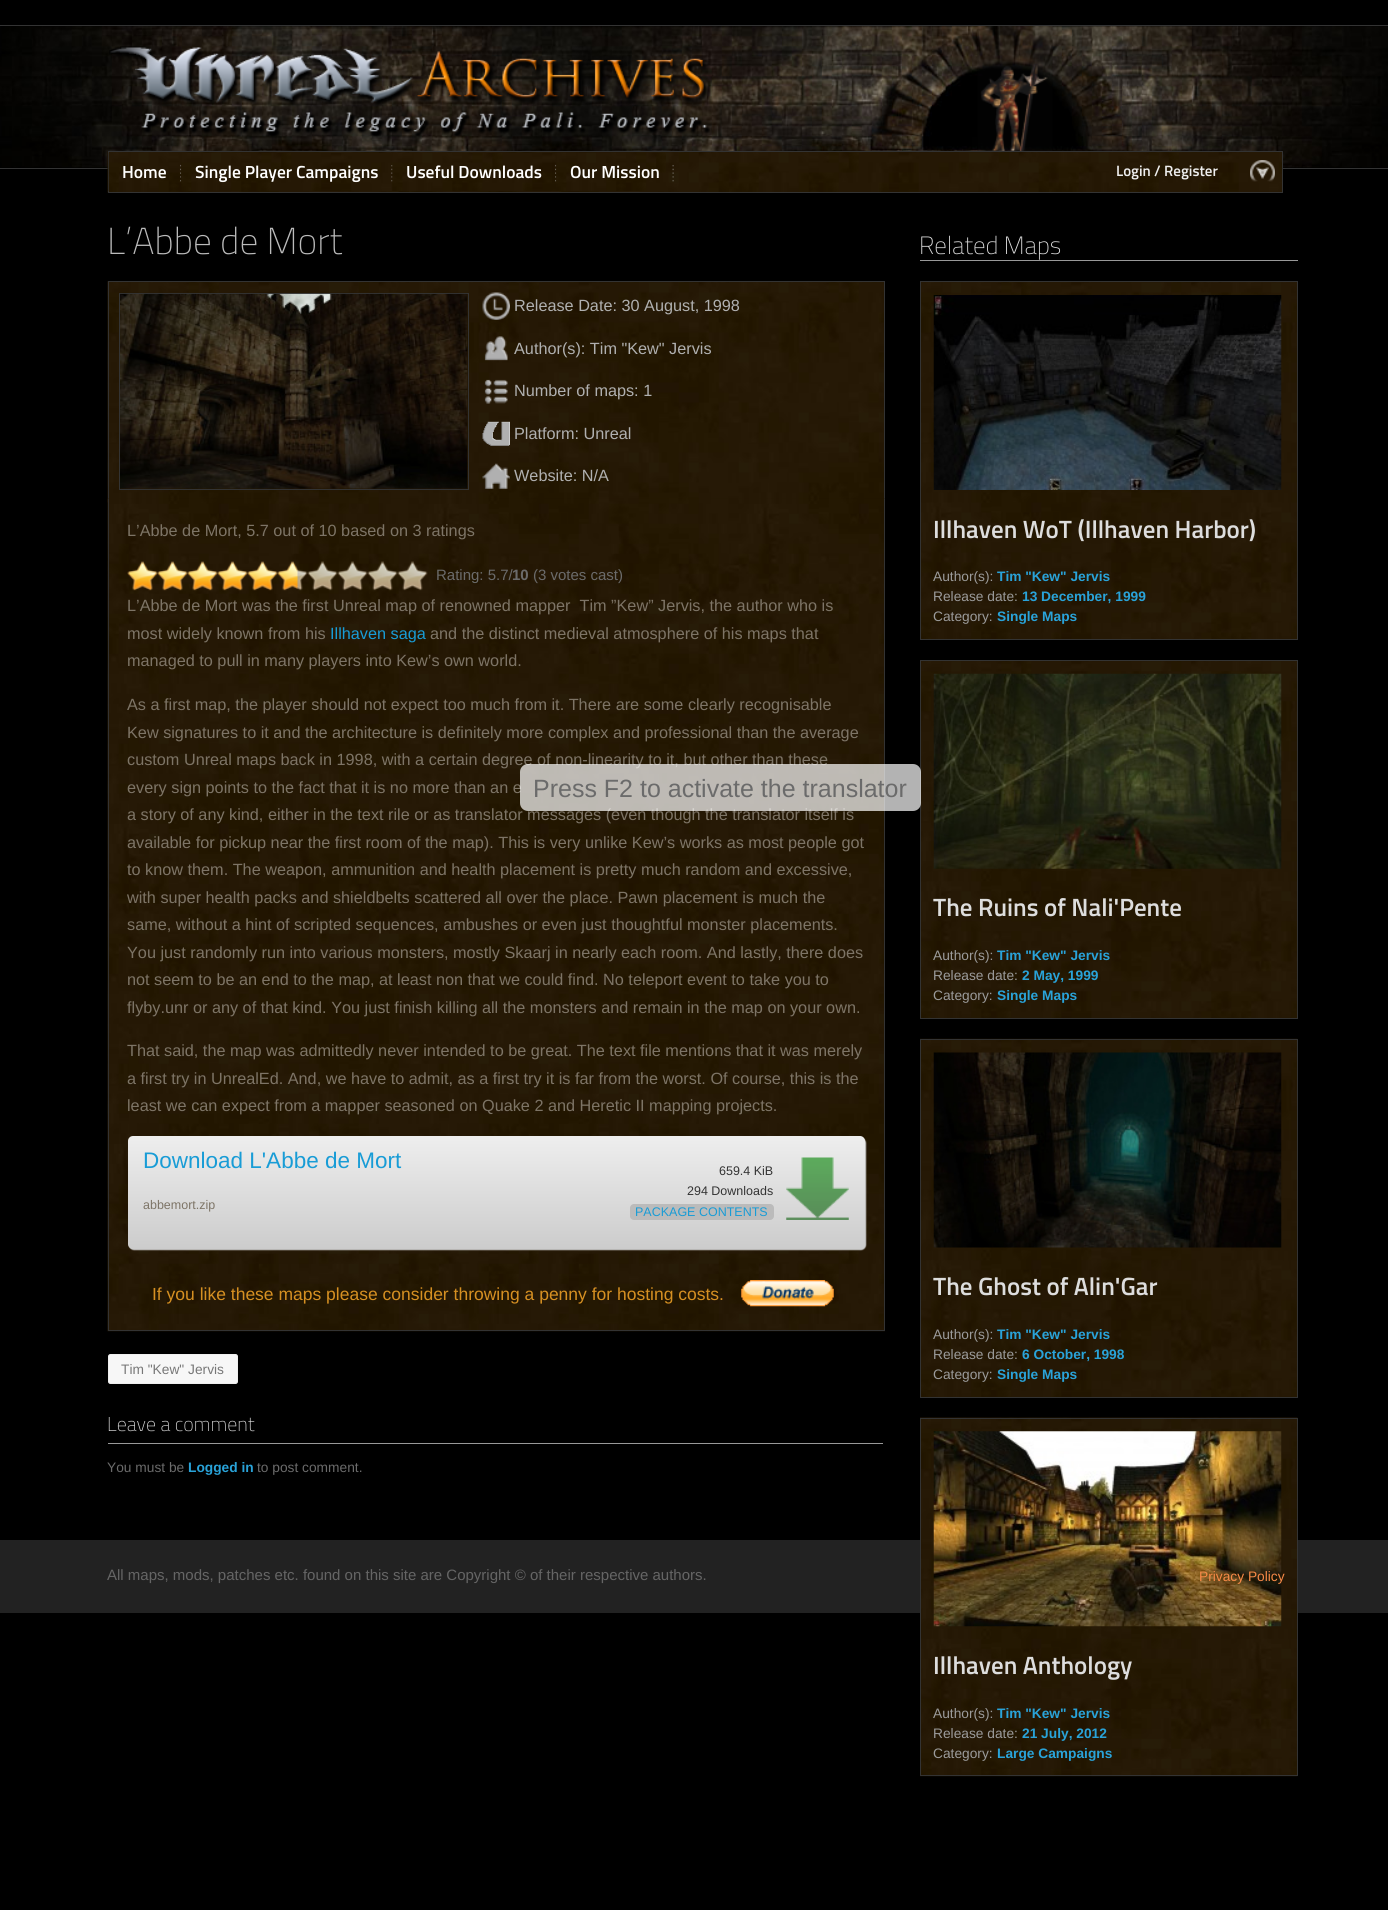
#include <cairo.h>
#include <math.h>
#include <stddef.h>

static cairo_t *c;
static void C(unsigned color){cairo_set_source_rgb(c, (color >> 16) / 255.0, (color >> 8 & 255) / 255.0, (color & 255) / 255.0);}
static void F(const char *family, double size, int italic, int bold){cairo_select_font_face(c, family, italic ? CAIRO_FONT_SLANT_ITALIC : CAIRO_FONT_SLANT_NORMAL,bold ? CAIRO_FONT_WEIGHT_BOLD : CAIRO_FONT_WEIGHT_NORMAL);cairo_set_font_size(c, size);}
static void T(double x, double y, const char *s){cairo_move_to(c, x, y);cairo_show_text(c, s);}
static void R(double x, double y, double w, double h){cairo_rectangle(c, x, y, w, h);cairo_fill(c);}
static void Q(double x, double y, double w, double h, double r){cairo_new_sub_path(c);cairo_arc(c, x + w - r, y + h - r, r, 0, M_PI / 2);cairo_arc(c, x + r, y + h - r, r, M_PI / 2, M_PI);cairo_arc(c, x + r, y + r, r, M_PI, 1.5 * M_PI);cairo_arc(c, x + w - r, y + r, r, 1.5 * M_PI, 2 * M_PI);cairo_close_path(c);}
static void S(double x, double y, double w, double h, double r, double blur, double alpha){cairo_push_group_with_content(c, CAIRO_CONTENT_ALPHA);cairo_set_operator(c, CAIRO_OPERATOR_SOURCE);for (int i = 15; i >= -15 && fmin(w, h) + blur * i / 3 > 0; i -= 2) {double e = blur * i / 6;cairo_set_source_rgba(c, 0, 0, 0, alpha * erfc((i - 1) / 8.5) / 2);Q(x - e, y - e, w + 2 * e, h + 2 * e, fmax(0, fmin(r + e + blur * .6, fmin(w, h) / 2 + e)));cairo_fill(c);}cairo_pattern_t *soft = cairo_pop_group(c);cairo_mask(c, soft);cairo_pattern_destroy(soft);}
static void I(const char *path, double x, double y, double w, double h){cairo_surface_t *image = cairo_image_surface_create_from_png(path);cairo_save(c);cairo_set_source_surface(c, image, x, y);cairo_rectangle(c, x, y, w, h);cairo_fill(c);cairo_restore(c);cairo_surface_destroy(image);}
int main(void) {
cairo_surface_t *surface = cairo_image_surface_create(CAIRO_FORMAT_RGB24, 1388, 1910);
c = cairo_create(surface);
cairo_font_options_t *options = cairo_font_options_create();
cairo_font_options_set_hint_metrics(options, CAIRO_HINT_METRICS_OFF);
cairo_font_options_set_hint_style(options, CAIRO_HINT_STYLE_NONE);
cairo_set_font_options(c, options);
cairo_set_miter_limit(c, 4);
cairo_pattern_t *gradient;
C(0x000000);
cairo_paint(c);
I("1.png",0,26,1388,142);
C(0x333333);
R(0,25,1388,1);
R(0,168,1388,1);
I("2.png",109,46,601,91);
I("3.png",977,26,76,125);
I("4.png",107,151,1175,42);
cairo_rectangle(c,108.5,151.5,1174,41);
cairo_set_line_width(c,1);
cairo_stroke(c);
I("5.png",108,152,1,39);
I("6.png",180,164,2,18);
F("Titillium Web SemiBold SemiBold",17.5,0,0);
C(0xffffff);
T(122,178,"Home");
I("7.png",181,153,211,38);
I("8.png",391,165,2,17);
T(195,178,"Single Player Campaigns");
I("9.png",392,153,164,38);
I("10.png",555,164,2,18);
T(406,178,"Useful Downloads");
I("11.png",556,152,110,39);
I("12.png",672,165,2,17);
T(570,178,"Our Mission");
I("13.png",1250,160,25,22);
F("Titillium Web SemiBold SemiBold",15,0,0);
C(0xeeeeee);
T(1116,176,"Login / Register");
F("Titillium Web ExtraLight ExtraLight",37.5,0,0);
C(0xbbbbbb);
T(107,254,"L’Abbe de Mort");
I("14.png",107,281,777,222);
C(0x333333);
R(108,281,777,1);
R(884,281,1,222);
R(108,281,1,222);
cairo_rectangle(c,119.5,293.5,349,196);
cairo_stroke(c);
I("15.png",120,293,348,196);
I("16.png",482,292,28,28);
F("Liberation Sans",16.25,0,0);
C(0xb0b0b0);
T(514,311,"Release Date: 30 August, 1998");
I("17.png",484,336,24,25);
T(514,354,"Author(s): Tim \"Kew\" Jervis");
I("18.png",484,379,24,25);
T(514,396,"Number of maps: 1");
I("19.png",482,421,28,25);
T(514,439,"Platform: Unreal");
I("20.png",482,463,28,26);
T(514,481,"Website: N/A");
I("21.png",107,498,778,834);
C(0x333333);
R(884,499,1,832);
R(108,1330,777,1);
R(108,499,1,832);
C(0x7d7466);
T(127,536,"L’Abbe de Mort, 5.7 out of 10 based on 3 ratings");
I("22.png",127,561,301,30);
I("23.png",127,561,171,30);
F("Liberation Sans",15,0,0);
C(0x6b6b6b);
T(436,580,"Rating: 5.7/");
F("Liberation Sans",15,0,1);
T(512,580,"10");
F("Liberation Sans",15,0,0);
T(533,580,"(3 votes cast)");
F("Liberation Sans",16.25,0,0);
C(0x7d7466);
T(127,611,"L’Abbe de Mort was the first Unreal map of renowned mapper  Tim ”Kew” Jervis, the author who is");
T(127,639,"most widely known from his");
C(0x189cd6);
T(330,639,"Illhaven saga");
C(0x7d7466);
T(430,639,"and the distinct medieval atmosphere of his maps that");
T(127,666,"managed to pull in many players into Kew’s own world.");
T(127,710,"As a first map, the player should not expect too much from it. There are some clearly recognisable");
T(127,738,"Kew signatures to it and the architecture is definitely more complex and professional than the average");
T(127,765,"custom Unreal maps back in 1998, with a certain degree of non-linearity to it, but other than these");
T(127,793,"every sign points to the fact that it is no more than an e");
T(127,820,"a story of any kind, either in the text rile or as translator messages (even though the translator itself is");
T(127,848,"available for pickup near the first room of the map). This is very unlike Kew’s works as most people got");
T(127,875,"to know them. The weapon, ammunition and health placement is pretty much random and excessive,");
T(127,903,"with super health packs and shieldbelts scattered all over the place. Pawn placement is much the");
T(127,930,"same, without a hint of scripted sequences, ambushes or even just thoughtful monster placements.");
T(127,958,"You just randomly run into various monsters, mostly Skaarj in nearly each room. And lastly, there does");
T(127,985,"not seem to be an end to the map, at least non that we could find. No teleport event to take you to");
T(127,1013,"flyby.unr or any of that kind. You just finish killing all the monsters and remain in the map on your own.");
T(127,1056,"That said, the map was admittedly never intended to be great. The text file mentions that it was merely");
T(127,1084,"a first try in UnrealEd. And, we have to admit, as a first try it is far from the worst. Of course, this is the");
T(127,1111,"least we can expect from a mapper seasoned on Quake 2 and Heretic II mapping projects.");
C(0xcccccc);
S(129,1138,737,112,5,.5,1);
gradient = cairo_pattern_create_linear(496,1136,496,1249);
cairo_pattern_add_color_stop_rgba(gradient,0,0.933,0.933,0.933,1);
cairo_pattern_add_color_stop_rgba(gradient,1,0.8,0.8,0.8,1);
cairo_set_source(c,gradient);
cairo_pattern_destroy(gradient);
Q(128,1136,737,113,5);
cairo_fill(c);
F("Liberation Sans",22.5,0,0);
C(0x189cd6);
T(143,1168,"Download L'Abbe de Mort");
F("Liberation Sans",12.5,0,0);
C(0x7d7466);
T(143,1209,"abbemort.zip");
I("24.png",786,1157,63,63);
C(0x333333);
T(719,1175,"659.4 KiB");
T(687,1195,"294 Downloads");
C(0xbbbbbb);
Q(630,1204,144,16,4);
cairo_fill(c);
C(0x189cd6);
T(635,1216,"PACKAGE CONTENTS");
F("Liberation Sans",17.5,0,0);
C(0xd69022);
T(152,1300,"If you like these maps please consider throwing a penny for hosting costs.");
I("25.png",741,1280,93,27);
C(0xf7f7f7);
Q(108.5,1354.5,129,29,2);
cairo_fill_preserve(c);
C(0xefefef);
cairo_stroke(c);
F("Liberation Sans",13.75,0,0);
C(0x777777);
T(121,1374,"Tim \"Kew\" Jervis");
C(0x999999);
R(108,1443,775,1);
F("Titillium Web ExtraLight ExtraLight",20,0,0);
C(0xdddddd);
T(107,1431,"Leave a comment");
F("Liberation Sans",13.75,0,0);
C(0x6b6b6b);
T(107,1472,"You must be");
F("Liberation Sans",13.75,0,1);
C(0x29a3d9);
T(188,1472,"Logged in");
F("Liberation Sans",13.75,0,0);
C(0x6b6b6b);
T(257,1472,"to post comment.");
C(0x999999);
R(920,260,378,1);
F("Titillium Web ExtraLight ExtraLight",25,0,0);
C(0xdddddd);
T(919,254,"Related Maps");
I("26.png",921,282,376,357);
cairo_rectangle(c,920.5,281.5,377,358);
C(0x333333);
cairo_stroke(c);
I("27.png",933,295,349,195);
F("Titillium Web SemiBold SemiBold",25,0,0);
C(0xdddddd);
T(933,538,"Illhaven WoT (Illhaven Harbor)");
F("Liberation Sans",13.75,0,0);
C(0x9b9b9b);
T(933,581,"Author(s):");
F("Liberation Sans",13.75,0,1);
C(0x29a3d9);
T(997,581,"Tim \"Kew\" Jervis");
F("Liberation Sans",13.75,0,0);
C(0x9b9b9b);
T(933,601,"Release date:");
F("Liberation Sans",13.75,0,1);
C(0x29a3d9);
T(1022,601,"13 December, 1999");
F("Liberation Sans",13.75,0,0);
C(0x9b9b9b);
T(933,621,"Category:");
F("Liberation Sans",13.75,0,1);
C(0x29a3d9);
T(997,621,"Single Maps");
I("28.png",921,661,376,357);
cairo_rectangle(c,920.5,660.5,377,358);
C(0x333333);
cairo_stroke(c);
I("29.png",933,673,349,196);
F("Titillium Web SemiBold SemiBold",25,0,0);
C(0xdddddd);
T(933,916,"The Ruins of Nali'Pente");
F("Liberation Sans",13.75,0,0);
C(0x9b9b9b);
T(933,960,"Author(s):");
F("Liberation Sans",13.75,0,1);
C(0x29a3d9);
T(997,960,"Tim \"Kew\" Jervis");
F("Liberation Sans",13.75,0,0);
C(0x9b9b9b);
T(933,980,"Release date:");
F("Liberation Sans",13.75,0,1);
C(0x29a3d9);
T(1022,980,"2 May, 1999");
F("Liberation Sans",13.75,0,0);
C(0x9b9b9b);
T(933,1000,"Category:");
F("Liberation Sans",13.75,0,1);
C(0x29a3d9);
T(997,1000,"Single Maps");
I("30.png",920,1038,378,359);
cairo_rectangle(c,920.5,1039.5,377,358);
C(0x333333);
cairo_stroke(c);
I("31.png",933,1052,349,196);
F("Titillium Web SemiBold SemiBold",25,0,0);
C(0xdddddd);
T(933,1295,"The Ghost of Alin'Gar");
F("Liberation Sans",13.75,0,0);
C(0x9b9b9b);
T(933,1339,"Author(s):");
F("Liberation Sans",13.75,0,1);
C(0x29a3d9);
T(997,1339,"Tim \"Kew\" Jervis");
F("Liberation Sans",13.75,0,0);
C(0x9b9b9b);
T(933,1359,"Release date:");
F("Liberation Sans",13.75,0,1);
C(0x29a3d9);
T(1022,1359,"6 October, 1998");
F("Liberation Sans",13.75,0,0);
C(0x9b9b9b);
T(933,1379,"Category:");
F("Liberation Sans",13.75,0,1);
C(0x29a3d9);
T(997,1379,"Single Maps");
C(0x222222);
R(0,1540,1388,73);
I("32.png",920,1417,378,360);
cairo_rectangle(c,920.5,1418.5,377,357);
C(0x333333);
cairo_stroke(c);
I("33.png",933,1431,349,196);
F("Titillium Web SemiBold SemiBold",25,0,0);
C(0xdddddd);
T(933,1674,"Illhaven Anthology");
F("Liberation Sans",13.75,0,0);
C(0x9b9b9b);
T(933,1718,"Author(s):");
F("Liberation Sans",13.75,0,1);
C(0x29a3d9);
T(997,1718,"Tim \"Kew\" Jervis");
F("Liberation Sans",13.75,0,0);
C(0x9b9b9b);
T(933,1738,"Release date:");
F("Liberation Sans",13.75,0,1);
C(0x29a3d9);
T(1022,1738,"21 July, 2012");
F("Liberation Sans",13.75,0,0);
C(0x9b9b9b);
T(933,1758,"Category:");
F("Liberation Sans",13.75,0,1);
C(0x29a3d9);
T(997,1758,"Large Campaigns");
cairo_set_source_rgba(c,1,1,1,0.7);
Q(520,764,401,47,8);
cairo_fill(c);
F("Liberation Sans",25,0,0);
C(0x6b6b6b);
T(533,797,"Press F2 to activate the translator");
F("Liberation Sans",15,0,0);
C(0x656565);
T(107,1580,"All maps, mods, patches etc. found on this site are Copyright © of their respective authors.");
F("Liberation Sans",13.75,0,0);
C(0xf78947);
T(1199,1581,"Privacy Policy");
cairo_surface_write_to_png(surface, "o.png");
cairo_font_options_destroy(options);
cairo_destroy(c);
cairo_surface_destroy(surface);
return 0;
}
